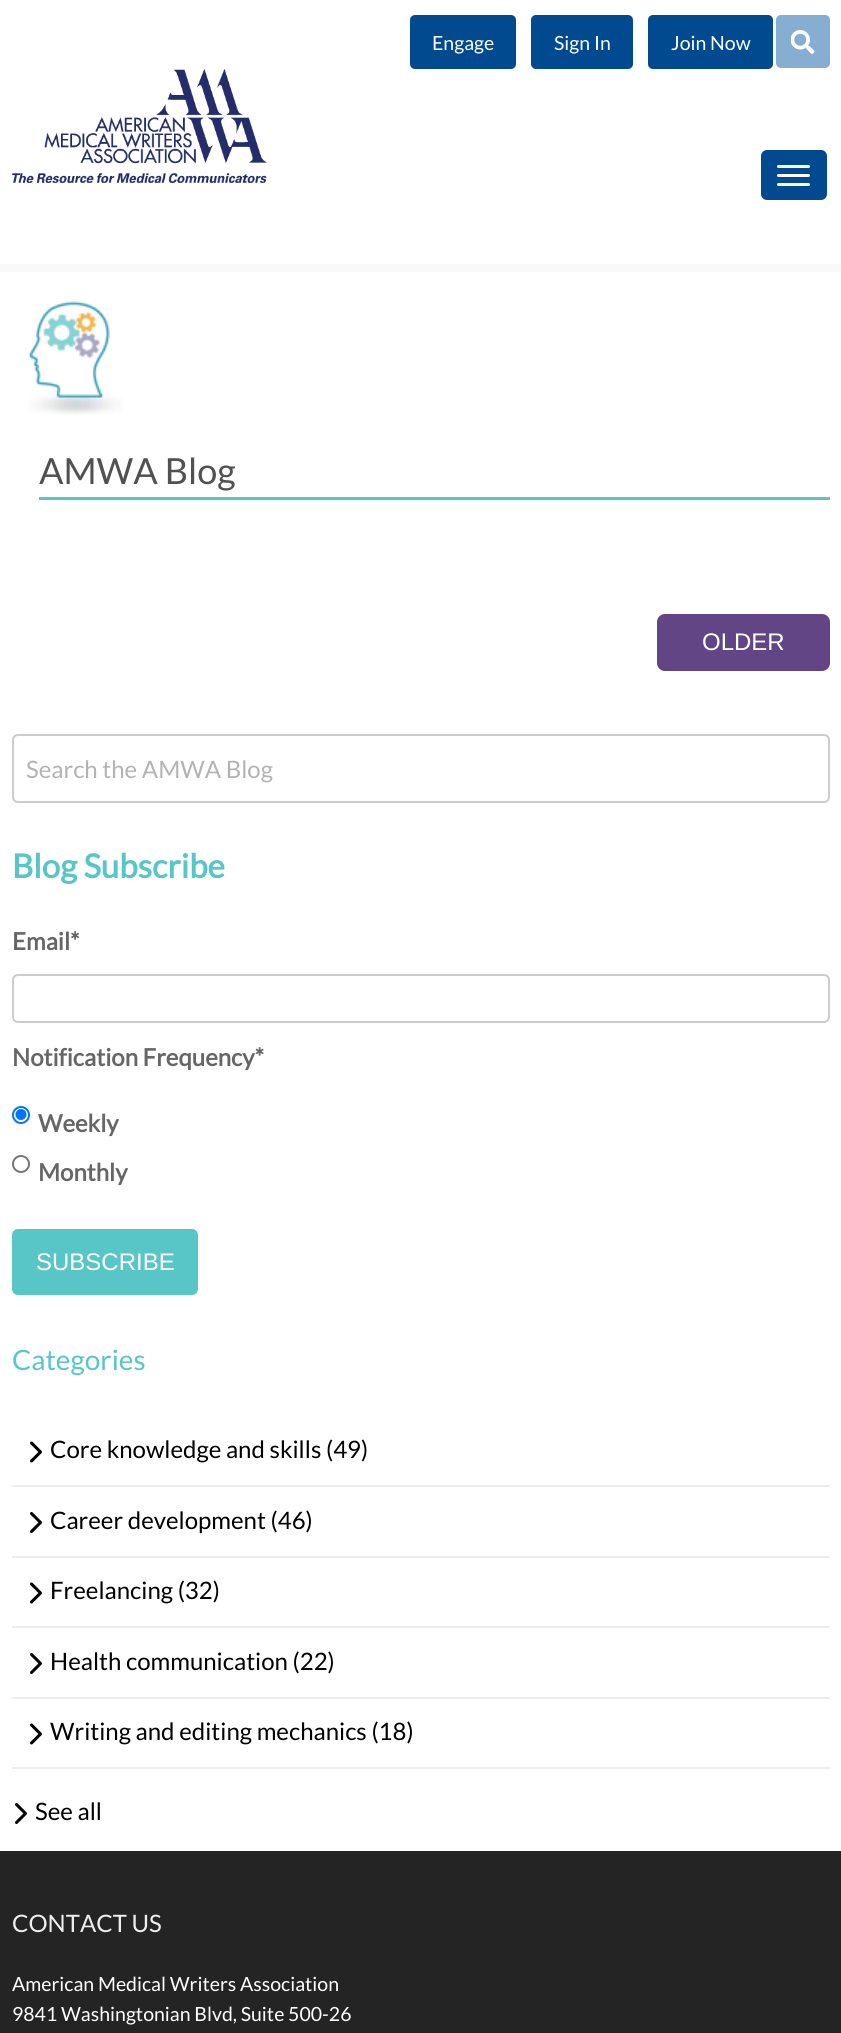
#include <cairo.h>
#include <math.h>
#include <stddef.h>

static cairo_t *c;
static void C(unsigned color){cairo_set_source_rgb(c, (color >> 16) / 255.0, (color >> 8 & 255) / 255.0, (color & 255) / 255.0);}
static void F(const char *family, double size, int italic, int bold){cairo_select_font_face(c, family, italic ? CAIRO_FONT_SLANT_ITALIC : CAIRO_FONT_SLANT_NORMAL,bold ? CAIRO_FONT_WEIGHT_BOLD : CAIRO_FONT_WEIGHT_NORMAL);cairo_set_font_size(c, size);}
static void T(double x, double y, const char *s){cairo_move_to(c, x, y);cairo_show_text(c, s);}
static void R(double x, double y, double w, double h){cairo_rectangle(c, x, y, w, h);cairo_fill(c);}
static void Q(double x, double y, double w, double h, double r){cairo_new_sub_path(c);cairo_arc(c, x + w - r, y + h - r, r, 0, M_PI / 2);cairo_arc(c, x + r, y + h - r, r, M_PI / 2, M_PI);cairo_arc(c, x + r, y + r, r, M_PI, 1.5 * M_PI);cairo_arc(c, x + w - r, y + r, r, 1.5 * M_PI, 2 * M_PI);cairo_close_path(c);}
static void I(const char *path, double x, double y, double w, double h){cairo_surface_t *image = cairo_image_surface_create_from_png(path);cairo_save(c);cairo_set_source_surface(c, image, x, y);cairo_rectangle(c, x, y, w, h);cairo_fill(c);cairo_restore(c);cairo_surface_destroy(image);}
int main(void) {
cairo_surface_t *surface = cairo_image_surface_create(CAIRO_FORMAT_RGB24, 841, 2033);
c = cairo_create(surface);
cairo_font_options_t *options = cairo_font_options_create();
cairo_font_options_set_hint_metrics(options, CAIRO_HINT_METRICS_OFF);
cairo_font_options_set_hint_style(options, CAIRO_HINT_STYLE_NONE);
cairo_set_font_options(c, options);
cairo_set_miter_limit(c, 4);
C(0xffffff);
cairo_paint(c);
C(0xf9f9f9);
R(0,264,841,8);
C(0x014a8f);
Q(410,15,106,54,5);
cairo_fill(c);
F("Lato",19.5,0,0);
C(0xffffff);
T(432,50,"Engage");
C(0x014a8f);
Q(531,15,102,54,5);
cairo_fill(c);
C(0xffffff);
T(554,50,"Sign In");
C(0x014a8f);
Q(648,15,125,54,5);
cairo_fill(c);
C(0xffffff);
T(671,50,"Join Now");
C(0x86aed2);
Q(776,15,54,53,5);
cairo_fill(c);
I("1.png",791,30,24,24);
I("2.png",12,69,255,114);
C(0x014a8f);
Q(762,151,64,48,5);
cairo_fill_preserve(c);
cairo_stroke(c);
C(0xffffff);
Q(777,174,33,3,1.5);
cairo_fill(c);
Q(777,165,33,3,1.5);
cairo_fill(c);
Q(777,183,33,3,1.5);
cairo_fill(c);
I("3.png",28,301,95,114);
C(0x58c5c7);
R(39,497,791,3);
F("Lato",36,0,0);
C(0x515151);
T(39,484,"AMWA Blog");
C(0x624585);
Q(657,614,173,57,8);
cairo_fill(c);
F("Liberation Sans",24,0,0);
C(0xffffff);
T(702,650,"OLDER");
Q(13,735,816,67,5);
C(0xcccccc);
cairo_stroke(c);
F("Lato",24,0,0);
C(0xb3b3b3);
T(26,778,"Search the AMWA Blog");
F("Lato",33,0,1);
C(0x58c5c7);
T(12,878,"Blog Subscribe");
F("Lato",24,0,1);
C(0x666666);
T(12,950,"Email*");
Q(13,975,816,47,5);
C(0xcccccc);
cairo_stroke(c);
C(0x666666);
T(12,1066,"Notification Frequency*");
cairo_new_path(c);
cairo_arc(c,21,1115,8,0,2 * M_PI);
C(0x0075ff);
cairo_stroke(c);
cairo_arc(c,21,1114.5,5.5,0,2 * M_PI);
cairo_fill(c);
C(0x666666);
T(38,1132,"Weekly");
cairo_new_path(c);
cairo_arc(c,21,1164,8,0,2 * M_PI);
C(0x767676);
cairo_stroke(c);
C(0x666666);
T(38,1181,"Monthly");
C(0x58c5c7);
Q(12,1229,186,66,6);
cairo_fill(c);
F("Liberation Sans",24,0,0);
C(0xffffff);
T(36,1270,"SUBSCRIBE");
F("Lato",28,0,0);
C(0x58c5c7);
T(12,1370,"Categories");
C(0xededed);
R(12,1485,818,2);
I("4.png",30,1441,12,22);
F("Lato",24,0,0);
C(0x000000);
T(50,1458,"Core knowledge and skills (49)");
C(0xededed);
R(12,1556,818,2);
I("5.png",30,1512,12,21);
C(0x000000);
T(50,1529,"Career development (46)");
C(0xededed);
R(12,1626,818,2);
I("4.png",30,1582,12,22);
C(0x000000);
T(50,1599,"Freelancing (32)");
C(0xededed);
R(12,1697,818,2);
I("5.png",30,1653,12,21);
C(0x000000);
T(50,1670,"Health communication (22)");
C(0xededed);
R(12,1767,818,2);
I("4.png",30,1723,12,22);
C(0x000000);
T(50,1740,"Writing and editing mechanics (18)");
I("5.png",15,1803,12,21);
T(35,1820,"See all");
C(0x242424);
R(0,1851,841,182);
C(0xeeeeee);
T(12,1932,"CONTACT US");
F("Lato",19.5,0,0);
C(0xffffff);
T(12,1991,"American Medical Writers Association");
T(12,2021,"9841 Washingtonian Blvd, Suite 500-26");
cairo_surface_write_to_png(surface, "o.png");
cairo_font_options_destroy(options);
cairo_destroy(c);
cairo_surface_destroy(surface);
return 0;
}
